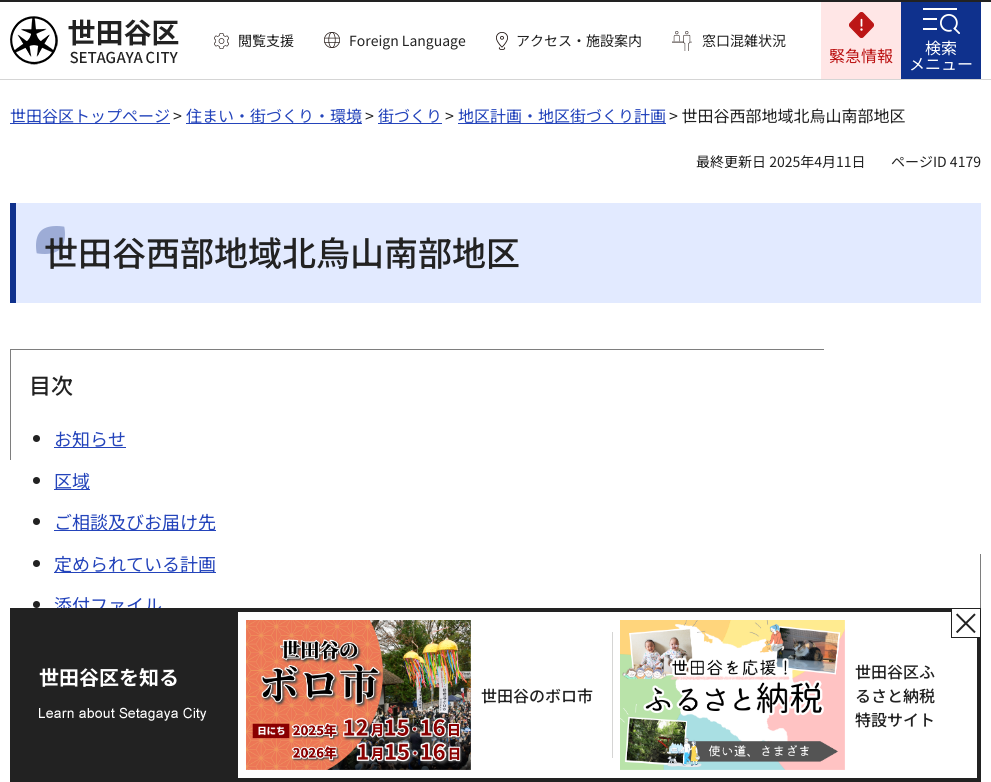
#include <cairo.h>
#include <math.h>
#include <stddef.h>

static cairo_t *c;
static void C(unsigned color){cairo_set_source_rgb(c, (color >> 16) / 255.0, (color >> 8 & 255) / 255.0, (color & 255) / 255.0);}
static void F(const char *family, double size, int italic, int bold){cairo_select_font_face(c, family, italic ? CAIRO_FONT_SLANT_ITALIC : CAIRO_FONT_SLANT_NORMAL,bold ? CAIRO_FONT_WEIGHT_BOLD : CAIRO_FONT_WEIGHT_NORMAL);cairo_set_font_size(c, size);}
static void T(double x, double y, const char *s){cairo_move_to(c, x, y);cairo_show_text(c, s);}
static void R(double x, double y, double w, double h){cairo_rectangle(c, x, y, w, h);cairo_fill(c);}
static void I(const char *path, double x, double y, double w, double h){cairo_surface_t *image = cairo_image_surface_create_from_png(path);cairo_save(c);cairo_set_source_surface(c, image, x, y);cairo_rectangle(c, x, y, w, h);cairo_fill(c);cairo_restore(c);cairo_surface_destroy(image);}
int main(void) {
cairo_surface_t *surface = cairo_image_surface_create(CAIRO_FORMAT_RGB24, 991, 782);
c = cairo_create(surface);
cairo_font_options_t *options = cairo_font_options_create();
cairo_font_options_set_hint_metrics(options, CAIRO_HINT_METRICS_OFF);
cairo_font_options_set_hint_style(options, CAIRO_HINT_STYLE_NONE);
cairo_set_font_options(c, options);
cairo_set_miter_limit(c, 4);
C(0xffffff);
cairo_paint(c);
C(0x222222);
R(0,0,991,2);
C(0xd5d5d5);
R(0,79,991,1);
I("1.png",10,16,169,49);
I("2.png",214,33,15,16);
F("Noto Sans JP Thin",14,0,0);
C(0x222222);
T(238,46,"閲覧支援");
I("3.png",324,32,16,16);
T(349,46,"Foreign Language");
I("4.png",496,32,12,18);
T(516,46,"アクセス・施設案内");
I("5.png",672,31,20,20);
T(702,46,"窓口混雑状況");
C(0xffe6e6);
R(821,2,80,77);
I("6.png",849,12,25,26);
F("Noto Sans JP Thin",16,0,0);
C(0xbc1616);
T(829,62,"緊急情報");
C(0x0f318d);
R(901,2,80,77);
I("7.png",923,8,37,26);
C(0xffffff);
T(925,54,"検索");
T(909,70,"メニュー");
C(0x2444bb);
R(10,123,160,1);
T(10,122,"世田谷区トップページ");
C(0x222222);
T(173,122,">");
C(0x2444bb);
R(186,123,176,1);
T(186,122,"住まい・街づくり・環境");
C(0x222222);
T(365,122,">");
C(0x2444bb);
R(378,123,64,1);
T(378,122,"街づくり");
C(0x222222);
T(445,122,">");
C(0x2444bb);
R(458,123,208,1);
T(458,122,"地区計画・地区街づくり計画");
C(0x222222);
T(669,122,"> 世田谷西部地域北烏山南部地区");
F("Noto Sans JP Thin",14,0,0);
T(696,167,"最終更新日 2025年4月11日");
T(891,167,"ページID 4179");
C(0xe2eaff);
R(16,203,965,100);
I("8.png",36,226,29,28);
C(0x0f318d);
R(10,203,6,100);
F("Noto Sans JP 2 Thin",34,0,0);
C(0x222222);
T(44,266,"世田谷西部地域北烏山南部地区");
C(0x7e7e7e);
R(10,349,814,1);
R(10,349,1,111);
F("Noto Sans JP 2 Thin",22,0,0);
C(0x222222);
T(29,394,"目次");
cairo_new_path(c);
cairo_arc(c,36.5,438.5,3.5,0,2 * M_PI);
cairo_fill(c);
C(0x2444bb);
R(54,447,72,1);
F("Noto Sans JP Thin",18,0,0);
T(54,446,"お知らせ");
C(0x222222);
cairo_new_path(c);
cairo_arc(c,36.5,480.5,3.5,0,2 * M_PI);
cairo_fill(c);
C(0x2444bb);
R(54,489,36,1);
T(54,488,"区域");
C(0x222222);
cairo_new_path(c);
cairo_arc(c,36.5,521.5,3.5,0,2 * M_PI);
cairo_fill(c);
C(0x2444bb);
R(54,530,162,1);
T(54,529,"ご相談及びお届け先");
C(0x222222);
cairo_new_path(c);
cairo_arc(c,36.5,563.5,3.5,0,2 * M_PI);
cairo_fill(c);
C(0x2444bb);
R(54,572,162,1);
T(54,571,"定められている計画");
C(0x222222);
cairo_new_path(c);
cairo_arc(c,36.5,604.5,3.5,0,2 * M_PI);
cairo_fill(c);
C(0x2444bb);
T(54,612,"添付ファイル");
C(0x7e7e7e);
R(980,554,1,54);
C(0x222222);
R(10,608,971,174);
C(0xffffff);
R(238,612,739,166);
I("9.png",951,608,30,30);
F("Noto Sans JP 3 Thin",20,0,0);
T(39,685,"世田谷区を知る");
I("10.png",39,707,168,14);
I("11.png",246,620,225,150);
F("Noto Sans JP 2 Thin",16,0,0);
C(0x222222);
T(481,702,"世田谷のボロ市");
C(0xd5d5d4);
R(612,632,1,126);
I("12.png",620,620,225,150);
C(0x222222);
T(855,678,"世田谷区ふ");
T(855,702,"るさと納税");
T(855,726,"特設サイト");
cairo_surface_write_to_png(surface, "o.png");
cairo_font_options_destroy(options);
cairo_destroy(c);
cairo_surface_destroy(surface);
return 0;
}
